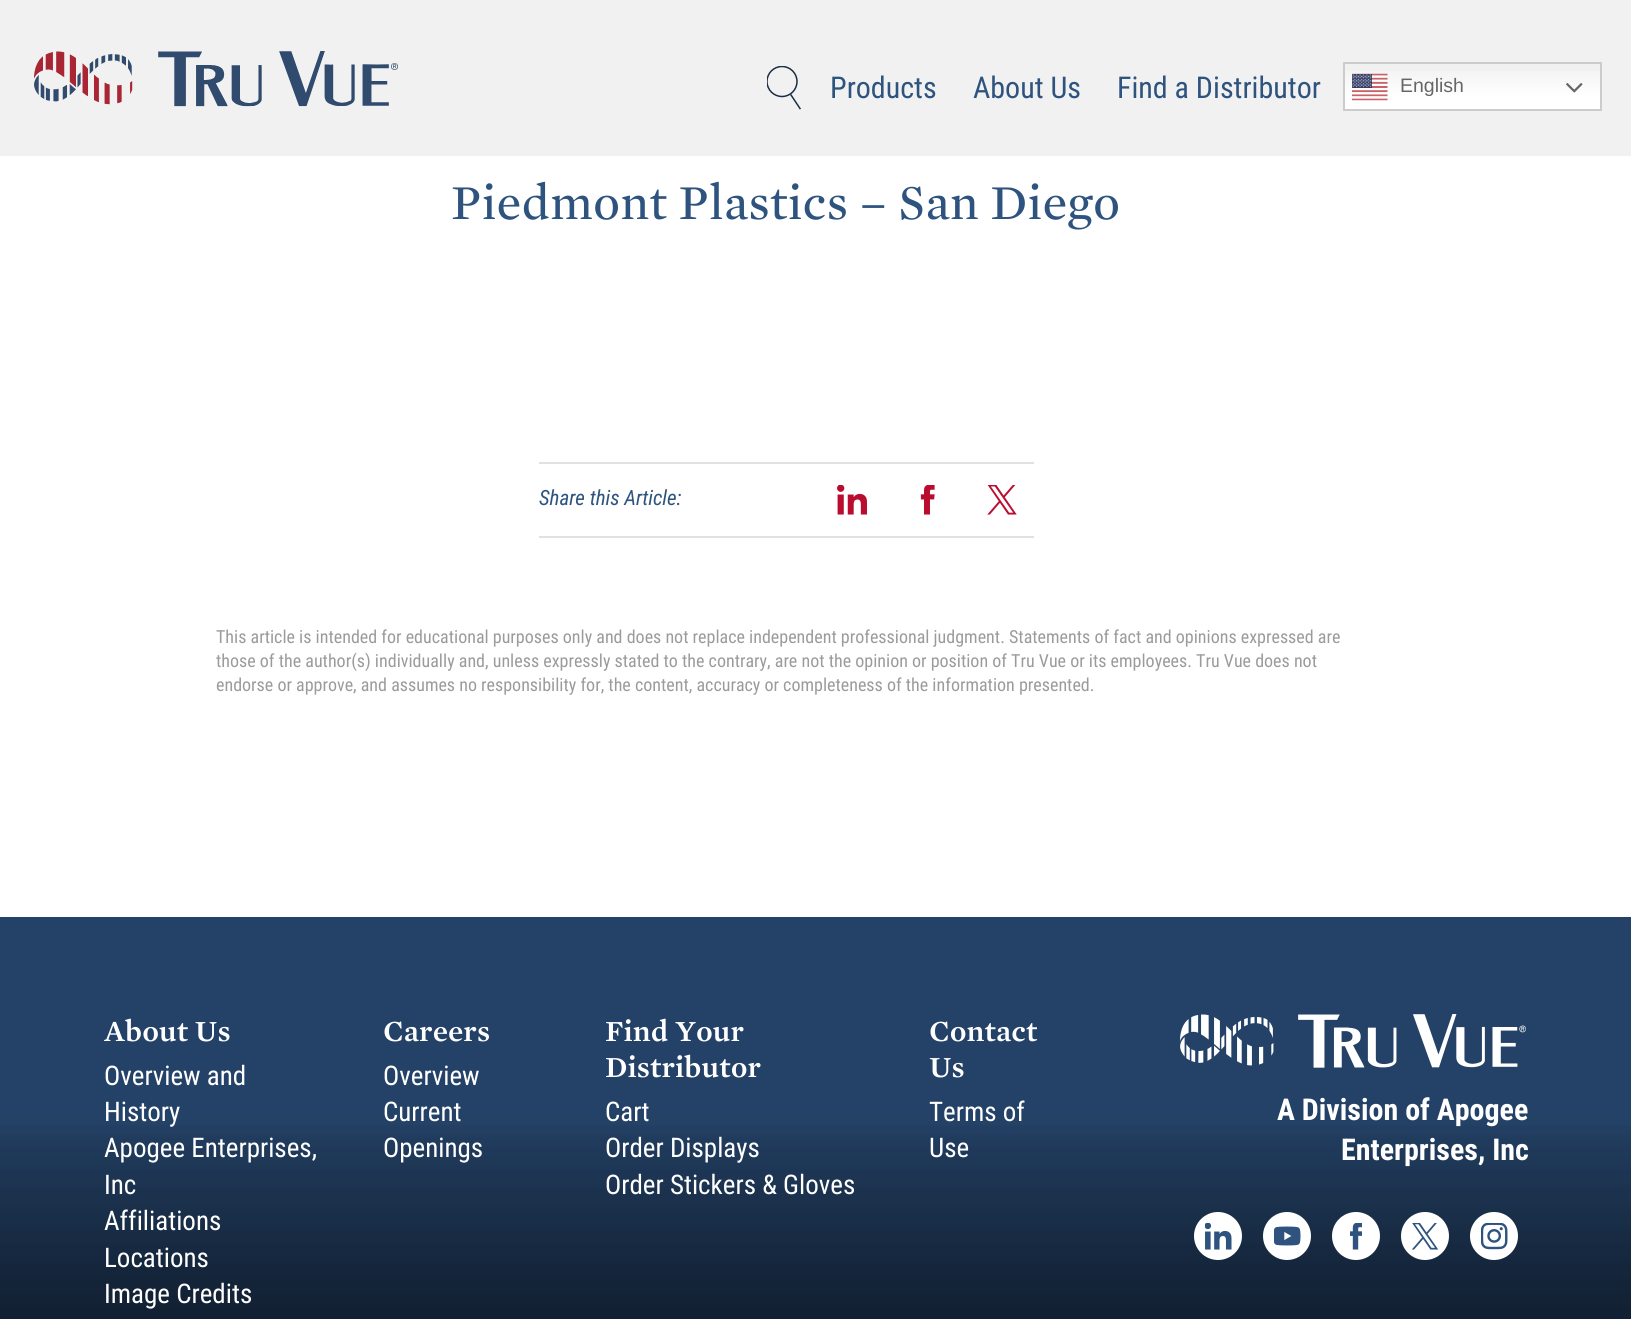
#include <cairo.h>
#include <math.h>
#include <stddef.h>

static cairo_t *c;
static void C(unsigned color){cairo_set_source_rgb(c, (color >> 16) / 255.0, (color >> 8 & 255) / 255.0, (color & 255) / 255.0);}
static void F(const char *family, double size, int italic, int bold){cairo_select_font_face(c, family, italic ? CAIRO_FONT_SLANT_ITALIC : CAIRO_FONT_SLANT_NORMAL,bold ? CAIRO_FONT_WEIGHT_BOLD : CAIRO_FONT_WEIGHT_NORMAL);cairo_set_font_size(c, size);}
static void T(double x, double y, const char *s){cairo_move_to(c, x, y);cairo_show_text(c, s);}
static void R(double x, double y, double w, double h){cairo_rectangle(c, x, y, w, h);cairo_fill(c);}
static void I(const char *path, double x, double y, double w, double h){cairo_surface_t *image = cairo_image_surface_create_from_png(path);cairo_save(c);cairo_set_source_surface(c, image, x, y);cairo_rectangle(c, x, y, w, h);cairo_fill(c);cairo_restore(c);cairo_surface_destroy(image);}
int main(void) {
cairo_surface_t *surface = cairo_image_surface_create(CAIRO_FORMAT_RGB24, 1631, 1319);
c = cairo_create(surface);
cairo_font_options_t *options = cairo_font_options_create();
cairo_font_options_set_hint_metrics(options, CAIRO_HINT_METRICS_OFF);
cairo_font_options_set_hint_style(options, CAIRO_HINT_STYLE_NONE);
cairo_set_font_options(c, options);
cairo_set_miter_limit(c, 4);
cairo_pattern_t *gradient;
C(0xffffff);
cairo_paint(c);
C(0xf1f1f1);
R(0,0,1631,156);
I("1.png",33,51,365,56);
cairo_save(c);
cairo_rectangle(c,767,66,34,44);
cairo_clip(c);
cairo_arc(c,782,81.5,15,0,2 * M_PI);
C(0x192d44);
cairo_set_line_width(c,1.5);
cairo_stroke(c);
cairo_restore(c);
cairo_new_path(c);
cairo_move_to(c,791,95);
cairo_line_to(c,800,108.5);
C(0x192d44);
cairo_set_line_width(c,1.5);
cairo_set_line_cap(c,CAIRO_LINE_CAP_SQUARE);
cairo_stroke(c);
F("Roboto Condensed",30,0,0);
C(0x2d537e);
T(830,98,"Products");
T(973,98,"About Us");
T(1117,98,"Find a Distributor");
gradient = cairo_pattern_create_linear(1472,61,1472,111);
cairo_pattern_add_color_stop_rgba(gradient,0,0.937,0.937,0.937,1);
cairo_pattern_add_color_stop_rgba(gradient,.7,1,1,1,1);
cairo_set_source(c,gradient);
cairo_pattern_destroy(gradient);
R(1345,71,255,38);
cairo_rectangle(c,1344,63,257,47);
C(0xcccccc);
cairo_set_line_width(c,2);
cairo_set_line_cap(c,CAIRO_LINE_CAP_BUTT);
cairo_stroke(c);
I("2.png",1352,73,36,28);
F("Liberation Sans",19.5,0,0);
C(0x666666);
T(1400,92,"English");
I("3.png",1566,83,17,10);
F("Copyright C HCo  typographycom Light",45,0,0);
C(0x2d537e);
T(451,219,"Piedmont Plastics – San Diego");
C(0xe1e1e1);
R(539,462,495,2);
R(539,536,495,2);
F("Roboto Condensed",21,1,0);
C(0x2d537e);
T(539,505,"Share this Article:");
I("4.png",837,485,30,30);
I("5.png",920,485,15,30);
I("6.png",987,485,30,30);
F("Roboto Condensed",18,0,0);
C(0x9b9b9b);
T(216,643,"This article is intended for educational purposes only and does not replace independent professional judgment. Statements of fact and opinions expressed are");
T(216,667,"those of the author(s) individually and, unless expressly stated to the contrary, are not the opinion or position of Tru Vue or its employees. Tru Vue does not");
T(216,691,"endorse or approve, and assumes no responsibility for, the content, accuracy or completeness of the information presented.");
gradient = cairo_pattern_create_linear(1375,1107,1375,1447);
cairo_pattern_add_color_stop_rgba(gradient,0,0.141,0.259,0.404,1);
cairo_pattern_add_color_stop_rgba(gradient,1,0.11,0.2,0.314,1);
cairo_set_source(c,gradient);
cairo_pattern_destroy(gradient);
R(0,917,1631,402);
gradient = cairo_pattern_create_linear(1375,1107,1375,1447);
cairo_pattern_add_color_stop_rgba(gradient,0,0,0,0,0);
cairo_pattern_add_color_stop_rgba(gradient,1,0,0,0,.31);
cairo_set_source(c,gradient);
cairo_pattern_destroy(gradient);
R(0,1135,1631,184);
F("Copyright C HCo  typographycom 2 Light",27,0,0);
C(0xffffff);
T(104,1041,"About Us");
F("Roboto Condensed",27,0,0);
T(104,1085,"Overview and");
gradient = cairo_pattern_create_linear(816,917,816,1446);
cairo_pattern_add_color_stop_rgba(gradient,.36,0,0,0,0);
cairo_pattern_add_color_stop_rgba(gradient,1,0,0,0,.5);
cairo_set_source(c,gradient);
cairo_pattern_destroy(gradient);
R(0,1125,1631,194);
C(0xffffff);
T(104,1121,"History");
T(104,1157,"Apogee Enterprises,");
T(104,1194,"Inc");
T(104,1230,"Affiliations");
T(104,1267,"Locations");
T(104,1303,"Image Credits");
F("Copyright C HCo  typographycom 2 Light",27,0,0);
T(383,1041,"Careers");
F("Roboto Condensed",27,0,0);
T(383,1085,"Overview");
T(383,1121,"Current");
T(383,1157,"Openings");
F("Copyright C HCo  typographycom 2 Light",27,0,0);
T(605,1041,"Find Your");
T(605,1077,"Distributor");
F("Roboto Condensed",27,0,0);
T(605,1121,"Cart");
T(605,1157,"Order Displays");
T(605,1194,"Order Stickers & Gloves");
F("Copyright C HCo  typographycom 2 Light",27,0,0);
T(929,1041,"Contact");
T(929,1077,"Us");
F("Roboto Condensed",27,0,0);
T(929,1121,"Terms of");
T(929,1157,"Use");
I("7.png",1179,1014,347,54);
F("Roboto Condensed",30,0,1);
T(1277,1120,"A Division of Apogee");
T(1341,1160,"Enterprises, Inc");
cairo_new_path(c);
cairo_arc(c,1218,1236,24,0,2 * M_PI);
cairo_fill(c);
I("8.png",1205,1223,27,27);
cairo_arc(c,1287,1236,24,0,2 * M_PI);
cairo_fill(c);
I("9.png",1274,1226,27,20);
cairo_arc(c,1356,1236,24,0,2 * M_PI);
cairo_fill(c);
I("10.png",1350,1223,12,27);
cairo_arc(c,1425,1236,24,0,2 * M_PI);
cairo_fill(c);
I("11.png",1412,1223,27,27);
cairo_arc(c,1494,1236,24,0,2 * M_PI);
cairo_fill(c);
I("12.png",1481,1223,27,27);
cairo_surface_write_to_png(surface, "o.png");
cairo_font_options_destroy(options);
cairo_destroy(c);
cairo_surface_destroy(surface);
return 0;
}
